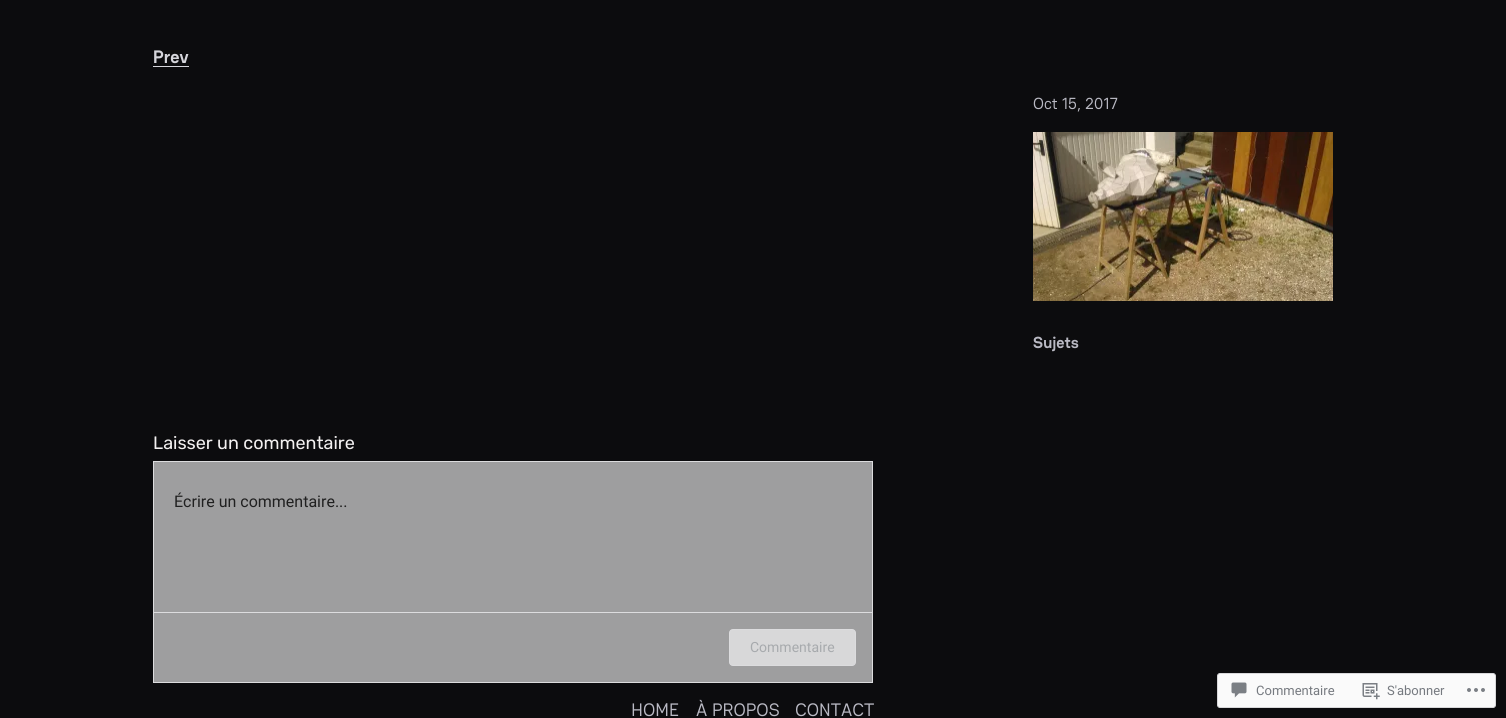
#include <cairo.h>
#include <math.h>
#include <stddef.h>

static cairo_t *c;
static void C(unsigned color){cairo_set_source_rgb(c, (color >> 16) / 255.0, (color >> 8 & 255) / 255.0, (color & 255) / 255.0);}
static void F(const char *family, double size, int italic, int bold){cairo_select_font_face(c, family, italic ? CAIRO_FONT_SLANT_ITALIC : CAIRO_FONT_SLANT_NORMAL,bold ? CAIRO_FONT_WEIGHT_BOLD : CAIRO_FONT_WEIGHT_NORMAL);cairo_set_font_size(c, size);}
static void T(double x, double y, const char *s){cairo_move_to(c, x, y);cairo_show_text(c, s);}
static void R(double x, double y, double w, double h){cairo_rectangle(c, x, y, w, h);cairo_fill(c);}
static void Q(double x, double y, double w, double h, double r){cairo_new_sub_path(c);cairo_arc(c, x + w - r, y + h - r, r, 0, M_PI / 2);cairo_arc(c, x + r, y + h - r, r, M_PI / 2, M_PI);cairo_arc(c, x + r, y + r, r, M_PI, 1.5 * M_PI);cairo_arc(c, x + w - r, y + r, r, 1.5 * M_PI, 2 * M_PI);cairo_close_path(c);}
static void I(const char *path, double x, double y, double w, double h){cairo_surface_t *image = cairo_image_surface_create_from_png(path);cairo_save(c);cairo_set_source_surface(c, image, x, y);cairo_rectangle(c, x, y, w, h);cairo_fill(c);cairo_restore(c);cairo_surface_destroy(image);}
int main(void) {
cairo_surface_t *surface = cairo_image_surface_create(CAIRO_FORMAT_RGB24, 1506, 718);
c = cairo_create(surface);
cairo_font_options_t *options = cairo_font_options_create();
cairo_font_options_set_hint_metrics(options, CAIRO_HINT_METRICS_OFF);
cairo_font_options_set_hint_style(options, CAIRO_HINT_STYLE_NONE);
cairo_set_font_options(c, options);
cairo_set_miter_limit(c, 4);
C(0x0c0c0e);
cairo_paint(c);
F("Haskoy",18,0,1);
C(0xd6d6dc);
T(153,63,"Prev");
R(153,66,36,1);
F("Haskoy",16,0,0);
C(0xbabac4);
T(1033,109,"Oct 15, 2017");
I("1.png",1033,132,300,169);
F("Haskoy",16,0,1);
T(1033,348,"Sujets");
F("Rubik",18,0,0);
C(0xf3f1f1);
T(153,449,"Laisser un commentaire");
C(0x9e9e9f);
cairo_rectangle(c,153.5,461.5,719,221);
cairo_fill_preserve(c);
C(0xdcdcde);
cairo_set_line_width(c,1);
cairo_stroke(c);
F("Roboto",16,0,0);
C(0x202020);
T(174,507,"Écrire un commentaire...");
C(0xdcdcde);
R(154,612,718,1);
C(0xd8d8d9);
Q(729.5,629.5,126,36,3.5);
cairo_fill_preserve(c);
C(0xdcdcde);
cairo_stroke(c);
F("Roboto",14,0,0);
C(0xa7aaad);
T(750,652,"Commentaire");
F("Haskoy",18,0,0);
C(0xbabac4);
T(631,716,"HOME");
T(696,716,"À PROPOS");
T(795,716,"CONTACT");
C(0xfafafa);
Q(1217.5,673.5,278,34,2.5);
cairo_fill_preserve(c);
C(0xd8d8da);
cairo_stroke(c);
I("2.png",1231,682,16,16);
F("Roboto",13,0,0);
C(0x767a80);
T(1256,695,"Commentaire");
I("3.png",1362,683,18,17);
T(1387,695,"S'abonner");
I("4.png",1467,688,18,4);
cairo_surface_write_to_png(surface, "o.png");
cairo_font_options_destroy(options);
cairo_destroy(c);
cairo_surface_destroy(surface);
return 0;
}
